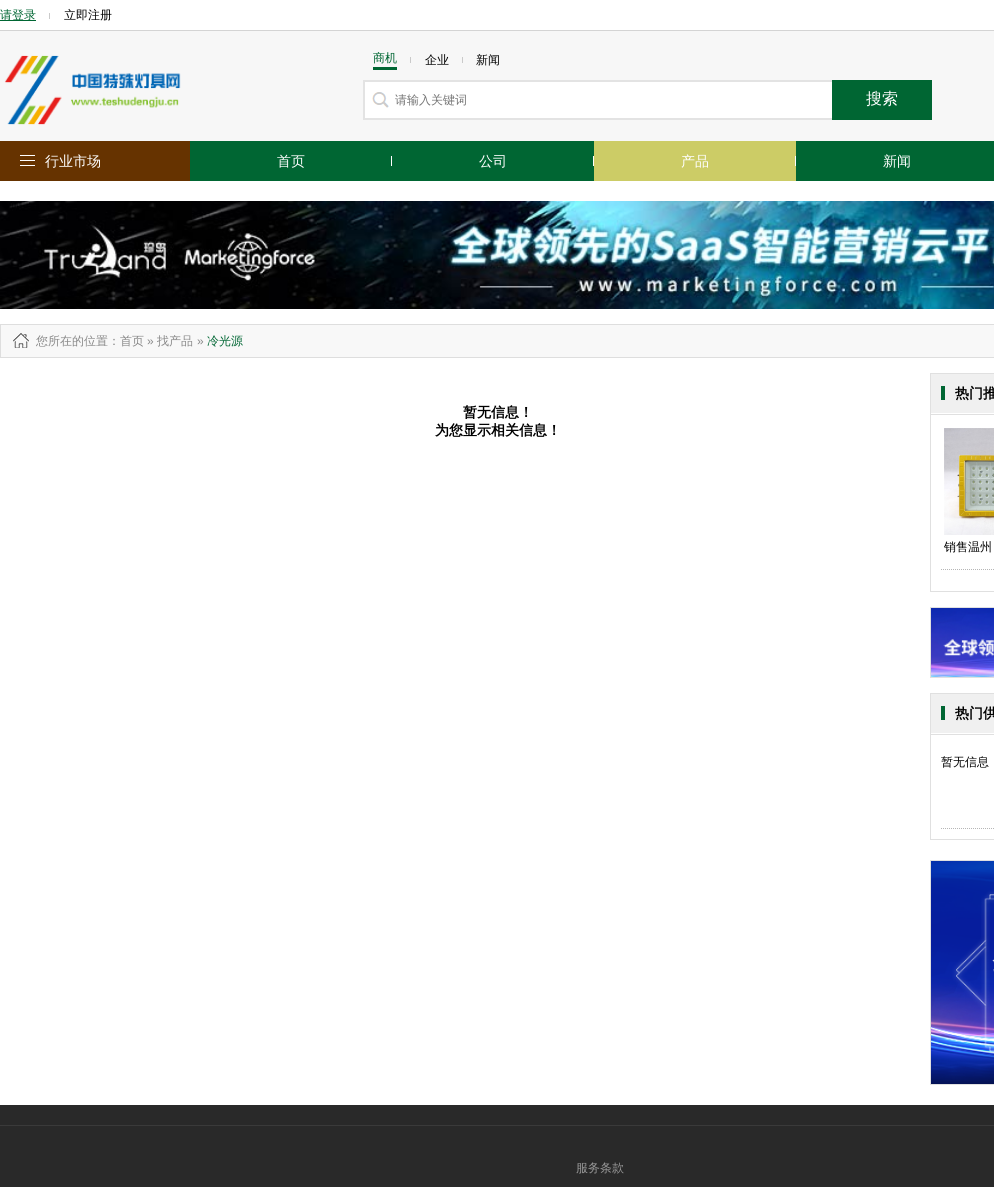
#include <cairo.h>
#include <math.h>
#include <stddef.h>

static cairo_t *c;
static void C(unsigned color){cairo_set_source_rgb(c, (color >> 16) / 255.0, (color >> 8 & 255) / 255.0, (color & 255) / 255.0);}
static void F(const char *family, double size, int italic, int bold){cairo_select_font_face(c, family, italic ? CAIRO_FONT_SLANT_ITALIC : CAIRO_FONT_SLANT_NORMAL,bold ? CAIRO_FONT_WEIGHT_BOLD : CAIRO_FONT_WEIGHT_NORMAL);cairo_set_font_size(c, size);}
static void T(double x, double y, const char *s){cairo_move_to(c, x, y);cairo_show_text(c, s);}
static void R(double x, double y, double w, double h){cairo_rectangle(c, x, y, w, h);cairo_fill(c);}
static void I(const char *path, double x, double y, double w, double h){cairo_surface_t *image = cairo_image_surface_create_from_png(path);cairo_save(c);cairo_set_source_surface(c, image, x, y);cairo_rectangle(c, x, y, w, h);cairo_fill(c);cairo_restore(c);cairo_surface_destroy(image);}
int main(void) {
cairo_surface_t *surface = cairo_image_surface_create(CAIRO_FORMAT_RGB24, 994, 1187);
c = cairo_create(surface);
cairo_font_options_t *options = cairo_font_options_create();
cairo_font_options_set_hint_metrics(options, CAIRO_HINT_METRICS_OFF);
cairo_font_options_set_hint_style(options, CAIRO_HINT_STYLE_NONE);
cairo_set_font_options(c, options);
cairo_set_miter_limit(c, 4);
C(0xffffff);
cairo_paint(c);
C(0xd4d4d4);
R(0,30,994,1);
C(0x006633);
R(0,20,36,1);
F("WenQuanYi Zen Hei Medium",12,0,0);
T(0,19,"请登录");
C(0xcacaca);
R(49,13,1,6);
C(0x000000);
T(64,19,"立即注册");
C(0xf7f7f7);
R(0,31,994,110);
I("1.png",4,55,177,70);
C(0x006633);
R(373,67,24,3);
T(373,62,"商机");
C(0xcacaca);
R(410,57,1,6);
C(0x000000);
T(425,64,"企业");
C(0xcacaca);
R(462,57,1,6);
C(0x000000);
T(476,64,"新闻");
C(0xffffff);
R(365,82,467,36);
I("2.png",372,92,17,16);
C(0xe3e3e3);
R(363,80,469,2);
R(363,118,469,2);
R(363,80,2,40);
C(0x757575);
T(395,104,"请输入关键词");
C(0x006633);
R(832,80,100,40);
F("WenQuanYi Zen Hei Medium",16,0,0);
C(0xffffff);
T(866,104,"搜索");
C(0x006633);
R(190,141,804,40);
C(0x663300);
R(0,141,190,40);
I("3.png",20,155,15,11);
F("WenQuanYi Zen Hei Medium",14,0,0);
C(0xffffff);
T(45,166,"行业市场");
R(391,156,1,10);
T(277,166,"首页");
R(593,156,1,10);
T(479,166,"公司");
C(0xcccc66);
R(594,141,202,40);
C(0xffffff);
R(795,156,1,10);
T(681,166,"产品");
T(883,166,"新闻");
I("4.png",0,201,994,108);
C(0xf8f8f8);
cairo_rectangle(c,.5,324.5,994,33);
cairo_fill_preserve(c);
C(0xdedede);
cairo_set_line_width(c,1);
cairo_stroke(c);
I("5.png",13,333,16,15);
F("WenQuanYi Zen Hei Medium",12,0,0);
C(0x888888);
T(36,345,"您所在的位置：首页");
F("Liberation Sans",12,0,0);
T(147,345,"»");
F("WenQuanYi Zen Hei Medium",12,0,0);
T(157,345,"找产品");
F("Liberation Sans",12,0,0);
T(197,345,"»");
F("WenQuanYi Zen Hei Medium",12,0,0);
C(0x006633);
T(207,345,"冷光源");
F("WenQuanYi Zen Hei",14,0,1);
C(0x000000);
T(463,417,"暂无信息！");
T(435,435,"为您显示相关信息！");
cairo_rectangle(c,930.5,373.5,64,218);
C(0xe0e0e0);
cairo_stroke(c);
C(0xf0f0f0);
R(931,374,63,39);
C(0xe0e0e0);
R(931,414,63,1);
C(0x006633);
R(941,386,4,14);
C(0x000000);
T(955,398,"热门推");
I("6.png",944,428,50,107);
F("WenQuanYi Zen Hei Medium",12,0,0);
T(944,551,"销售温州");
cairo_new_path(c);
cairo_move_to(c,941,569.5);
cairo_line_to(c,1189,569.5);
C(0xb6b6b6);
cairo_set_dash(c,(double[]){1,1},2,0);
cairo_stroke(c);
cairo_rectangle(c,930.5,607.5,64,70);
C(0xe0e0e0);
cairo_set_dash(c,NULL,0,0);
cairo_stroke(c);
I("7.png",931,608,63,69);
cairo_rectangle(c,930.5,693.5,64,146);
cairo_stroke(c);
C(0xf0f0f0);
R(931,694,63,39);
C(0xe0e0e0);
R(931,734,63,1);
C(0x006633);
R(941,706,4,14);
F("WenQuanYi Zen Hei",14,0,1);
C(0x000000);
T(955,718,"热门供");
cairo_new_path(c);
cairo_move_to(c,941,828.5);
cairo_line_to(c,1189,828.5);
C(0xb6b6b6);
cairo_set_dash(c,(double[]){1,1},2,0);
cairo_stroke(c);
F("WenQuanYi Zen Hei Medium",12,0,0);
C(0x000000);
T(941,766,"暂无信息");
cairo_rectangle(c,930.5,860.5,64,224);
C(0xe0e0e0);
cairo_set_dash(c,NULL,0,0);
cairo_stroke(c);
I("8.png",931,861,63,223);
C(0x292929);
R(0,1105,994,82);
C(0x3a3a3a);
R(0,1125,994,1);
C(0x979797);
T(576,1172,"服务条款");
cairo_surface_write_to_png(surface, "o.png");
cairo_font_options_destroy(options);
cairo_destroy(c);
cairo_surface_destroy(surface);
return 0;
}
